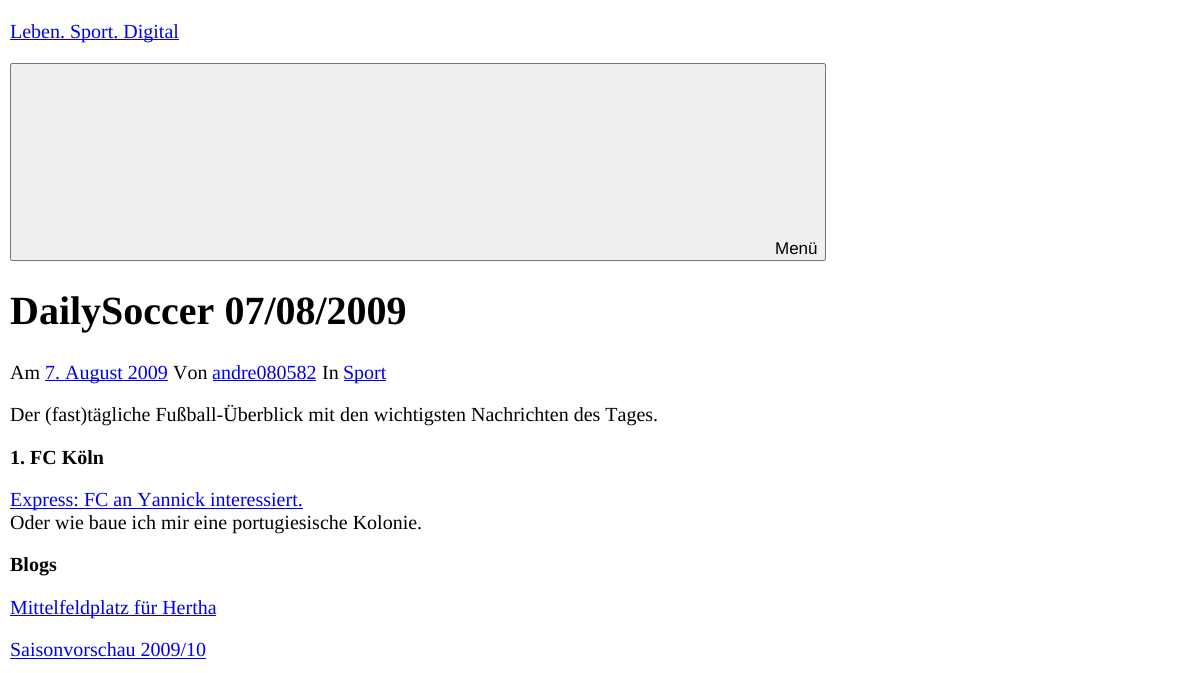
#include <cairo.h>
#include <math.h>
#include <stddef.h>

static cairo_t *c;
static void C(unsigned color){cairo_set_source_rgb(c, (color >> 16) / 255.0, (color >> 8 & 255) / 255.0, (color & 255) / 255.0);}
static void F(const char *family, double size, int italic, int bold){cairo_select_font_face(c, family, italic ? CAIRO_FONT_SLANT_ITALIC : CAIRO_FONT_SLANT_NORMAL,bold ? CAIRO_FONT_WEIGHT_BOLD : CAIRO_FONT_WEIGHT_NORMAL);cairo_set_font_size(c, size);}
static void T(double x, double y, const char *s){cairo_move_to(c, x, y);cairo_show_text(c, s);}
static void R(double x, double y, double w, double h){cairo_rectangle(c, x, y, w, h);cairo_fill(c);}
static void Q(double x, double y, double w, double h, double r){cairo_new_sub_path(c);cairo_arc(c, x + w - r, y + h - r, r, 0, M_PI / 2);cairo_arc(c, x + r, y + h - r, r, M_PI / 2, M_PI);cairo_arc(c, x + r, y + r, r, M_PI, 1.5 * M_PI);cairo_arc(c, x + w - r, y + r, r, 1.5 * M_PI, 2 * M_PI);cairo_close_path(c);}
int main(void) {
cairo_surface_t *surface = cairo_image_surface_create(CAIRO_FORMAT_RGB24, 1198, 673);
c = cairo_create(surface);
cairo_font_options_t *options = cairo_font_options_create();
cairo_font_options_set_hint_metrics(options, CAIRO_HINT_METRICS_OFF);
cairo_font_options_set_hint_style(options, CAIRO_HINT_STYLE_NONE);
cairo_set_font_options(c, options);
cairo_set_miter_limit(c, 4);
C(0xffffff);
cairo_paint(c);
C(0x0000ee);
R(10,39,169,1);
F("Liberation Serif",20,0,0);
T(10,38,"Leben. Sport. Digital");
C(0xefefef);
Q(10.5,63.5,815,197,2);
cairo_fill_preserve(c);
C(0x767676);
cairo_set_line_width(c,1);
cairo_stroke(c);
F("Liberation Sans",17,0,0);
C(0x000000);
T(775,254,"Menü");
F("Liberation Serif",40,0,1);
T(10,324,"DailySoccer 07/08/2009");
F("Liberation Serif",20,0,0);
T(10,379,"Am");
C(0x0000ee);
R(45,380,123,1);
T(45,379,"7. August 2009");
C(0x000000);
T(173,379,"Von");
C(0x0000ee);
T(212,379,"andre080582");
R(213,380,103,1);
C(0x000000);
T(322,379,"In");
C(0x0000ee);
R(344,380,42,1);
T(343,379,"Sport");
C(0x000000);
T(10,421,"Der (fast)tägliche Fußball-Überblick mit den wichtigsten Nachrichten des Tages.");
F("Liberation Serif",20,0,1);
T(10,464,"1. FC Köln");
C(0x0000ee);
R(10,508,293,1);
F("Liberation Serif",20,0,0);
T(10,506,"Express: FC an Yannick interessiert.");
C(0x000000);
T(10,529,"Oder wie baue ich mir eine portugiesische Kolonie.");
F("Liberation Serif",20,0,1);
T(10,571,"Blogs");
C(0x0000ee);
R(10,615,206,1);
F("Liberation Serif",20,0,0);
T(10,614,"Mittelfeldplatz für Hertha");
T(10,656,"Saisonvorschau 2009/10");
R(10,658,196,1);
cairo_surface_write_to_png(surface, "o.png");
cairo_font_options_destroy(options);
cairo_destroy(c);
cairo_surface_destroy(surface);
return 0;
}
